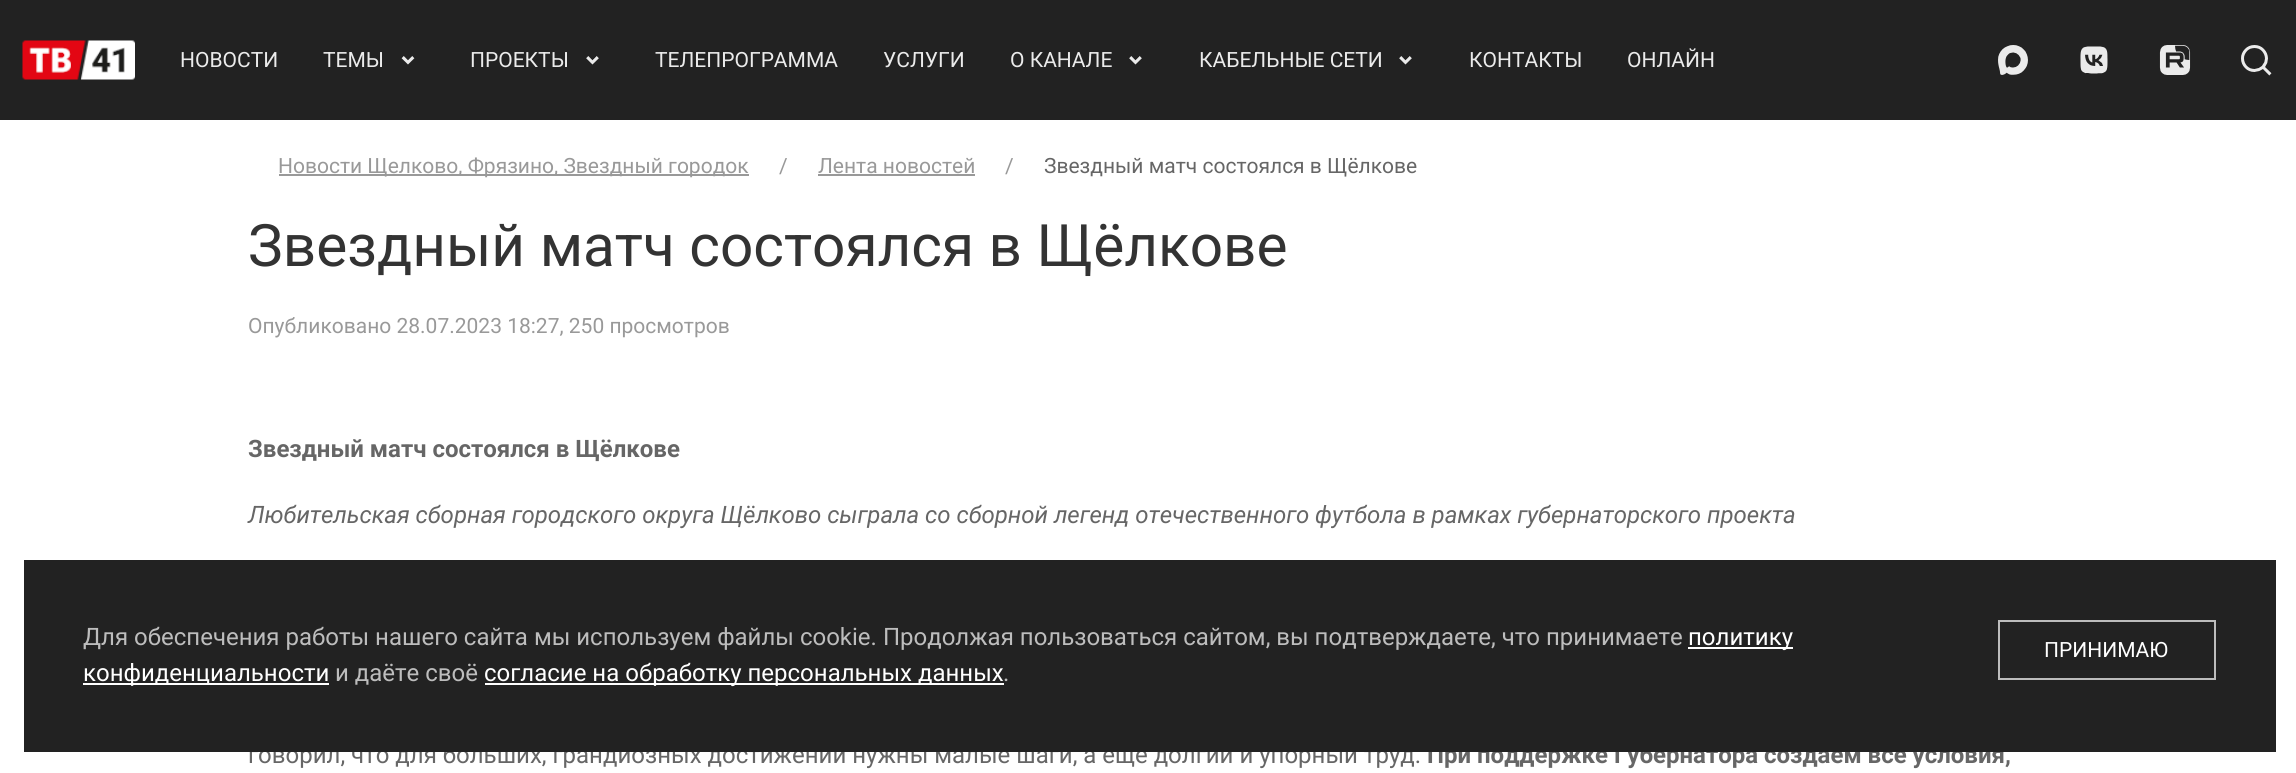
#include <cairo.h>
#include <math.h>
#include <stddef.h>

static cairo_t *c;
static void C(unsigned color){cairo_set_source_rgb(c, (color >> 16) / 255.0, (color >> 8 & 255) / 255.0, (color & 255) / 255.0);}
static void F(const char *family, double size, int italic, int bold){cairo_select_font_face(c, family, italic ? CAIRO_FONT_SLANT_ITALIC : CAIRO_FONT_SLANT_NORMAL,bold ? CAIRO_FONT_WEIGHT_BOLD : CAIRO_FONT_WEIGHT_NORMAL);cairo_set_font_size(c, size);}
static void T(double x, double y, const char *s){cairo_move_to(c, x, y);cairo_show_text(c, s);}
static void R(double x, double y, double w, double h){cairo_rectangle(c, x, y, w, h);cairo_fill(c);}
static void I(const char *path, double x, double y, double w, double h){cairo_surface_t *image = cairo_image_surface_create_from_png(path);cairo_save(c);cairo_set_source_surface(c, image, x, y);cairo_rectangle(c, x, y, w, h);cairo_fill(c);cairo_restore(c);cairo_surface_destroy(image);}
int main(void) {
cairo_surface_t *surface = cairo_image_surface_create(CAIRO_FORMAT_RGB24, 2296, 773);
c = cairo_create(surface);
cairo_font_options_t *options = cairo_font_options_create();
cairo_font_options_set_hint_metrics(options, CAIRO_HINT_METRICS_OFF);
cairo_font_options_set_hint_style(options, CAIRO_HINT_STYLE_NONE);
cairo_set_font_options(c, options);
cairo_set_miter_limit(c, 4);
C(0xffffff);
cairo_paint(c);
C(0x222222);
R(0,0,2296,120);
I("1.png",22,40,113,40);
F("Roboto",21,0,0);
C(0xebebeb);
T(180,67,"НОВОСТИ");
T(323,67,"ТЕМЫ");
I("2.png",401,56,14,9);
T(470,67,"ПРОЕКТЫ");
I("3.png",586,56,13,9);
T(655,67,"ТЕЛЕПРОГРАММА");
T(883,67,"УСЛУГИ");
T(1010,67,"О КАНАЛЕ");
I("3.png",1129,56,13,9);
T(1199,67,"КАБЕЛЬНЫЕ СЕТИ");
I("3.png",1399,56,13,9);
T(1469,67,"КОНТАКТЫ");
T(1627,67,"ОНЛАЙН");
I("4.png",1998,45,30,30);
I("5.png",2080,46,28,28);
I("6.png",2159,45,32,30);
I("7.png",2241,45,31,31);
C(0x999999);
R(279,174,470,2);
T(278,173,"Новости Щелково, Фрязино, Звездный городок");
T(779,173,"/");
T(818,173,"Лента новостей");
R(818,174,157,2);
T(1005,173,"/");
C(0x666666);
T(1044,173,"Звездный матч состоялся в Щёлкове");
F("Roboto",58.5,0,0);
C(0x333333);
T(248,266,"Звездный матч состоялся в Щёлкове");
F("Roboto",21,0,0);
C(0x999999);
T(248,333,"Опубликовано 28.07.2023 18:27, 250 просмотров");
F("Roboto",24,0,1);
C(0x666666);
T(248,457,"Звездный матч состоялся в Щёлкове");
F("Roboto",24,1,0);
T(248,523,"Любительская сборная городского округа Щёлково сыграла со сборной легенд отечественного футбола в рамках губернаторского проекта");
F("Roboto",24,0,0);
T(248,763,"говорил, что для больших, грандиозных достижений нужны малые шаги, а ещё долгий и упорный труд.");
F("Roboto",24,0,1);
T(1427,763,"При поддержке Губернатора создаём все условия,");
C(0x222222);
R(24,560,2252,192);
F("Roboto",24,0,0);
C(0xbdbdbd);
T(83,645,"Для обеспечения работы нашего сайта мы используем файлы cookie. Продолжая пользоваться сайтом, вы подтверждаете, что принимаете");
C(0xffffff);
R(1688,647,105,2);
T(1688,645,"политику");
R(83,683,246,2);
T(83,681,"конфиденциальности");
C(0xbdbdbd);
T(335,681,"и даёте своё");
C(0xffffff);
R(485,683,519,2);
T(484,681,"согласие на обработку персональных данных");
C(0xbdbdbd);
T(1003,681,".");
cairo_rectangle(c,1999,621,216,58);
cairo_stroke(c);
F("Roboto",21,0,0);
C(0xffffff);
T(2044,657,"ПРИНИМАЮ");
cairo_surface_write_to_png(surface, "o.png");
cairo_font_options_destroy(options);
cairo_destroy(c);
cairo_surface_destroy(surface);
return 0;
}
